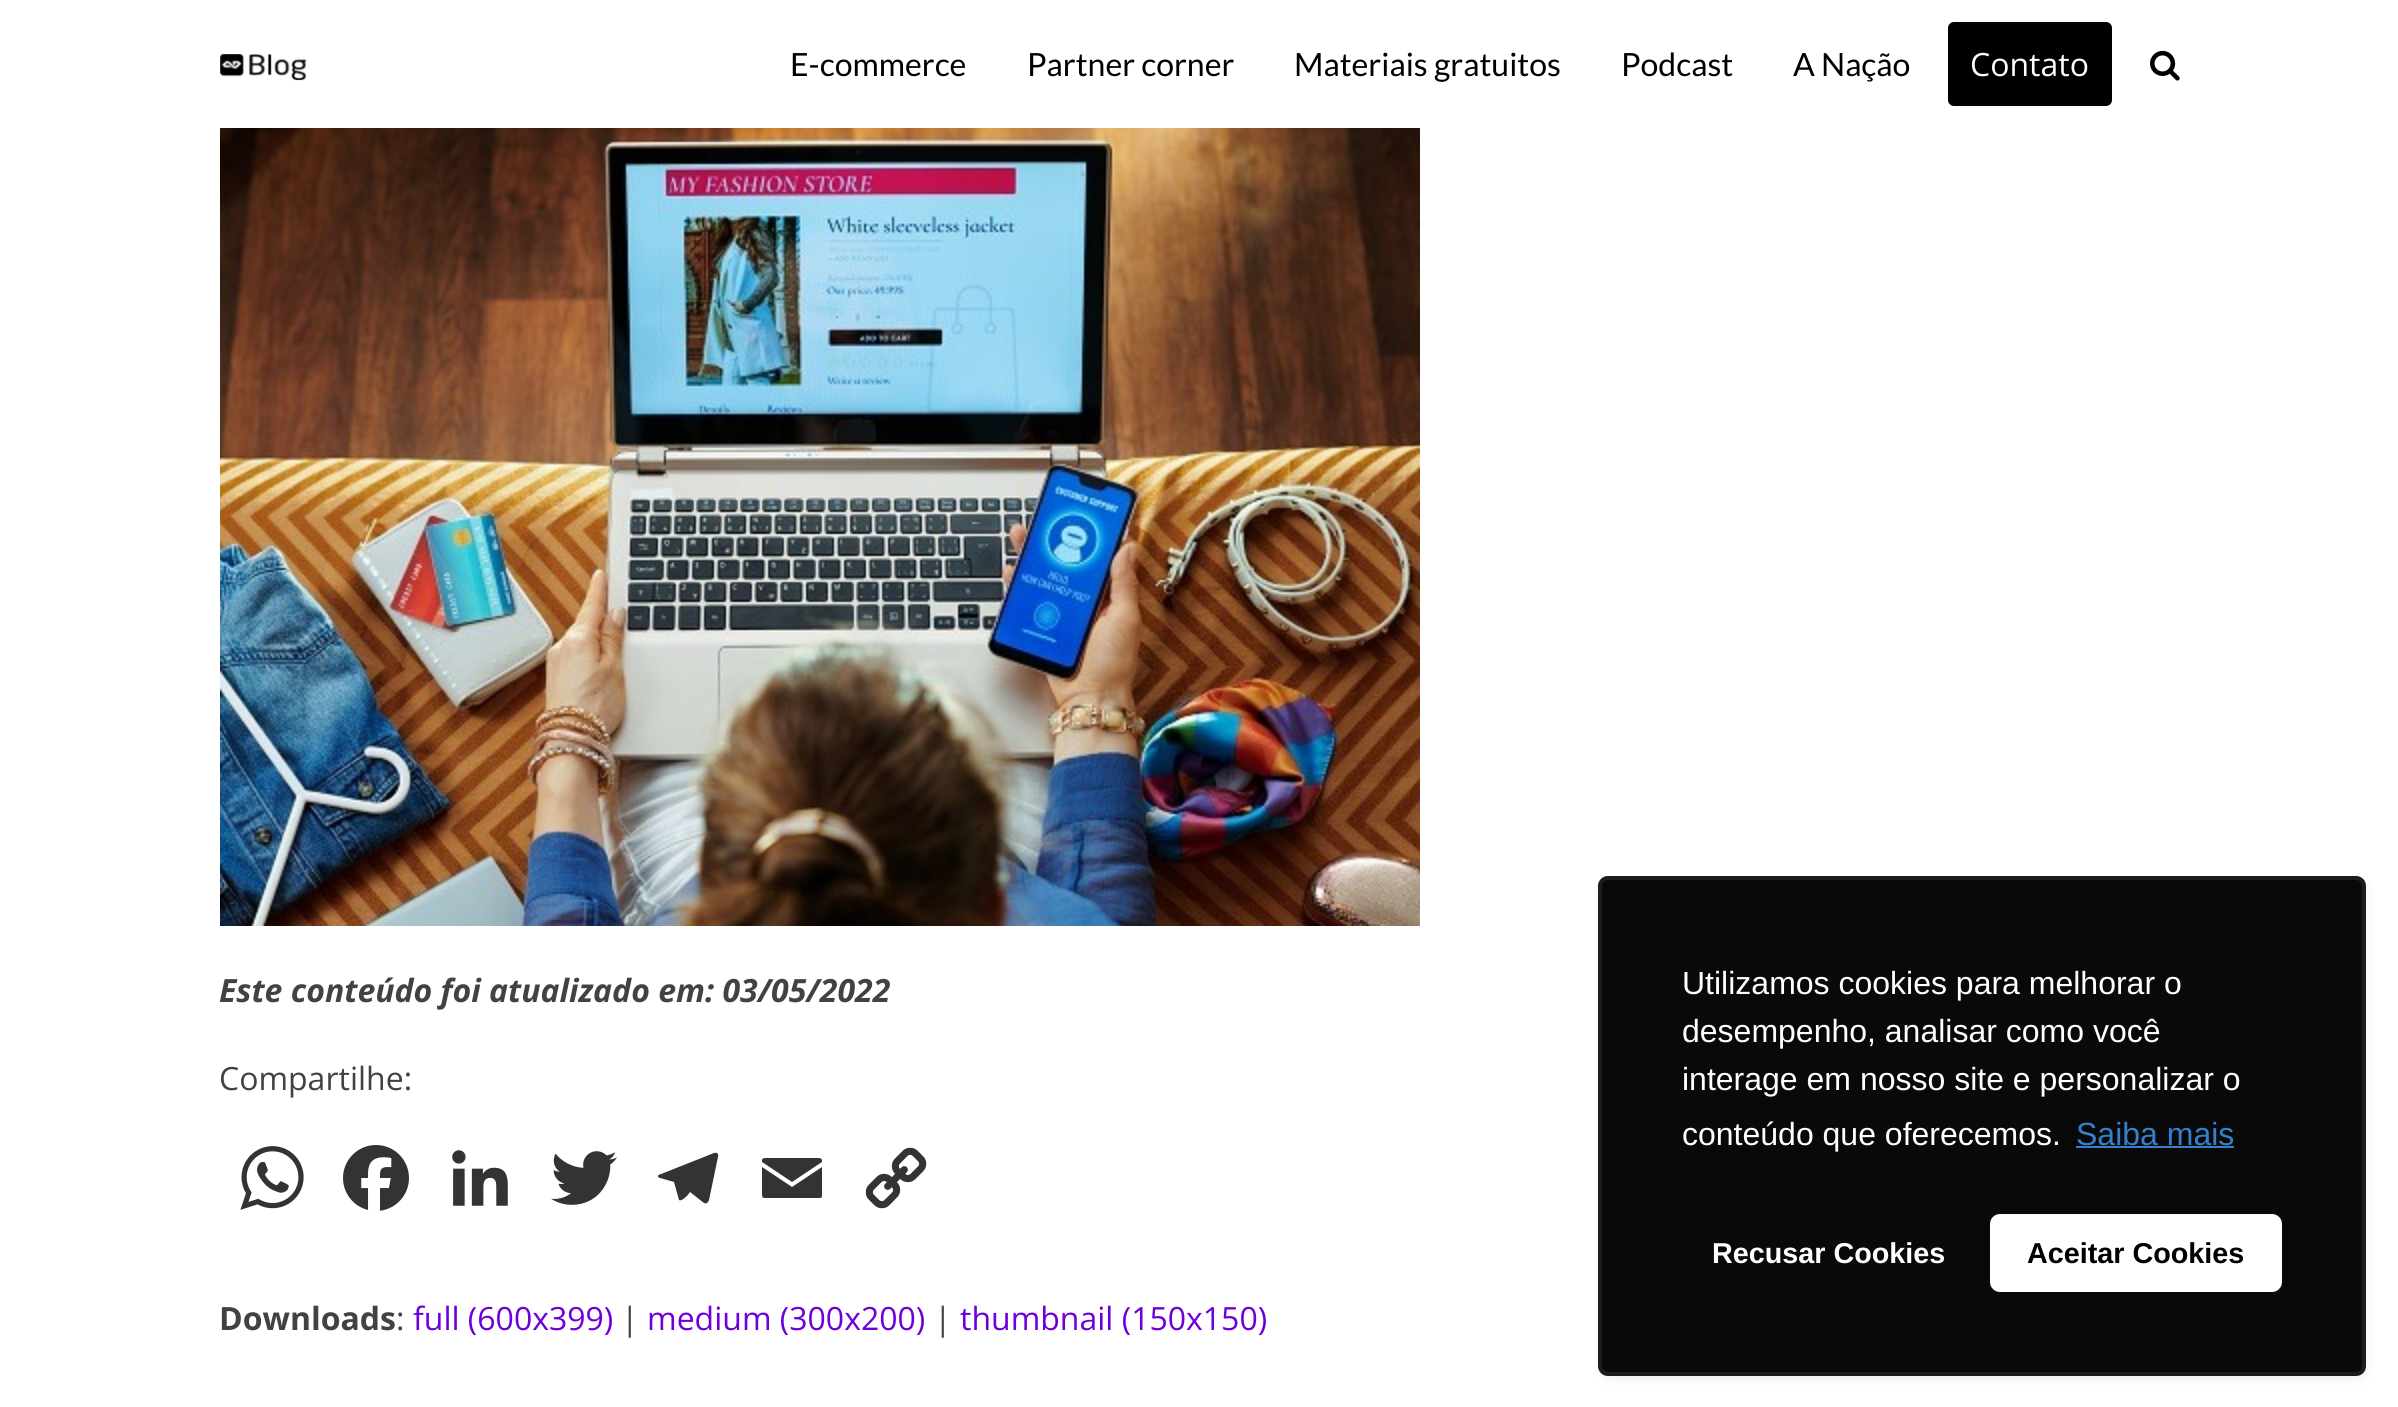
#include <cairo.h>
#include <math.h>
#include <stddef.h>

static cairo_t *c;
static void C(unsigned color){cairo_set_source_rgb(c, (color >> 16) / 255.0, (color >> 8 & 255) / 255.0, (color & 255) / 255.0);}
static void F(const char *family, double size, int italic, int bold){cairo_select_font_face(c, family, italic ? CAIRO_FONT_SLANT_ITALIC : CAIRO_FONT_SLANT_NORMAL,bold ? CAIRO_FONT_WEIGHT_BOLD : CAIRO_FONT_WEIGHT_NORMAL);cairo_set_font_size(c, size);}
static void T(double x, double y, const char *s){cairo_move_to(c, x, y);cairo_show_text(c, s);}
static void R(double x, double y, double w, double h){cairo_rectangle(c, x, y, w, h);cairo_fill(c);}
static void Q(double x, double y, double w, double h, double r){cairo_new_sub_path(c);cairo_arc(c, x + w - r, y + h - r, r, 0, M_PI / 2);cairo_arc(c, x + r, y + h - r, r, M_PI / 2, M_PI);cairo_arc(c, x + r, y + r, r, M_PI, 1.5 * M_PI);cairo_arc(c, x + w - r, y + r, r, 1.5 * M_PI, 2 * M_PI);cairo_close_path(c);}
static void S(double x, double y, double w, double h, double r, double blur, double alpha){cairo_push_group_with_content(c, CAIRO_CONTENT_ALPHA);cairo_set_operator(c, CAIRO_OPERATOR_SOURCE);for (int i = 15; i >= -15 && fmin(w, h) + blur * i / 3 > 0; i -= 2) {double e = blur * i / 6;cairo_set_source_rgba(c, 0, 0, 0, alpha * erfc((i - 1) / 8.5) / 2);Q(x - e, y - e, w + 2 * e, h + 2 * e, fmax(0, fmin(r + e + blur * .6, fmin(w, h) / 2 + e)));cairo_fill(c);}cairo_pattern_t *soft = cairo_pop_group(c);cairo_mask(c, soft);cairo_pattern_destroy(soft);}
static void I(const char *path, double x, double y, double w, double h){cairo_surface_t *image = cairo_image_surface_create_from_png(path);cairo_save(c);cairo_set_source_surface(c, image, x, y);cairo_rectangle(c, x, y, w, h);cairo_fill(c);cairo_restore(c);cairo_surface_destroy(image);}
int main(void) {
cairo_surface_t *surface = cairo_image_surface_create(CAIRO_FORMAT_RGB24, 2398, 1407);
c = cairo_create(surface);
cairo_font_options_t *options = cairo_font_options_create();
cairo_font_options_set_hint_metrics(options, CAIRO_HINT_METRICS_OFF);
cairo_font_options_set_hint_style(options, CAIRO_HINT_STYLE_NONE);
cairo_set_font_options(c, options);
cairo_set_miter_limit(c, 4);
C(0xffffff);
cairo_paint(c);
I("1.png",220,54,86,27);
F("Lato",32,0,0);
C(0x000000);
T(790,76,"E-commerce");
T(1027,76,"Partner corner");
T(1294,76,"Materiais gratuitos");
T(1621,76,"Podcast");
T(1793,76,"A Nação");
Q(1948,22,164,84,6);
cairo_fill(c);
F("Open Sans",32,0,0);
C(0xffffff);
T(1970,76,"Contato");
I("2.png",2150,50,30,31);
I("3.png",220,128,1200,798);
F("Open Sans",32,1,1);
C(0x424242);
T(219,1002,"Este conteúdo foi atualizado em: 03/05/2022");
F("Open Sans",32,0,0);
T(219,1090,"Compartilhe:");
I("4.png",240,1146,64,64);
I("5.png",343,1145,66,66);
I("6.png",452,1150,56,56);
I("7.png",551,1151,66,54);
C(0x333333);
cairo_new_path(c);
cairo_move_to(c,714,1153);
cairo_line_to(c,661,1174);
cairo_curve_to(c,657,1175,657,1177,660,1178);
cairo_line_to(c,674,1182);
cairo_line_to(c,679,1200);
cairo_curve_to(c,682,1202,689,1194,690,1192);
cairo_line_to(c,704,1203);
cairo_curve_to(c,706,1204,708,1203,709,1200);
cairo_line_to(c,718,1157);
cairo_curve_to(c,719,1154,717,1152,714,1153);
cairo_close_path(c);
cairo_fill(c);
cairo_new_path(c);
cairo_move_to(c,822,1194);
cairo_line_to(c,822,1167);
cairo_line_to(c,792,1187);
cairo_line_to(c,762,1167);
cairo_line_to(c,762,1194);
cairo_curve_to(c,762,1198,763,1198,766,1198);
cairo_line_to(c,818,1198);
cairo_curve_to(c,822,1198,822,1198,822,1194);
cairo_move_to(c,822,1161);
cairo_curve_to(c,822,1159,821,1158,818,1158);
cairo_line_to(c,766,1158);
cairo_curve_to(c,762,1158,762,1159,762,1162);
cairo_line_to(c,792,1182);
cairo_line_to(c,822,1162);
cairo_close_path(c);
cairo_fill(c);
I("8.png",865,1147,62,62);
F("Open Sans",32,0,1);
C(0x424242);
T(219,1330,"Downloads");
F("Open Sans",32,0,0);
T(396,1330,":");
C(0x6d00da);
T(413,1330,"full (600x399)");
C(0x424242);
T(621,1330,"|");
C(0x6d00da);
T(647,1330,"medium (300x200)");
C(0x424242);
T(934,1330,"|");
C(0x6d00da);
T(960,1330,"thumbnail (150x150)");
C(0x636e7c);
S(1600,880,768,500,10,4,.1);
C(0x090909);
Q(1598,876,768,500,10);
cairo_fill(c);
Q(1600,878,764,496,8);
cairo_set_source_rgba(c,0.388,0.431,0.486,0.2);
cairo_set_line_width(c,4);
cairo_stroke(c);
F("Liberation Sans",32,0,0);
C(0xffffff);
T(1682,994,"Utilizamos cookies para melhorar o");
T(1682,1042,"desempenho, analisar como você");
T(1682,1090,"interage em nosso site e personalizar o");
T(1682,1145,"conteúdo que oferecemos.");
C(0x357fce);
T(2076,1145,"Saiba mais");
R(2076,1146,158,2);
F("Liberation Sans",28.75,0,1);
C(0xffffff);
T(1712,1263,"Recusar Cookies");
Q(1990,1214,292,78,10);
cairo_fill(c);
C(0x000000);
T(2027,1263,"Aceitar Cookies");
cairo_surface_write_to_png(surface, "o.png");
cairo_font_options_destroy(options);
cairo_destroy(c);
cairo_surface_destroy(surface);
return 0;
}
